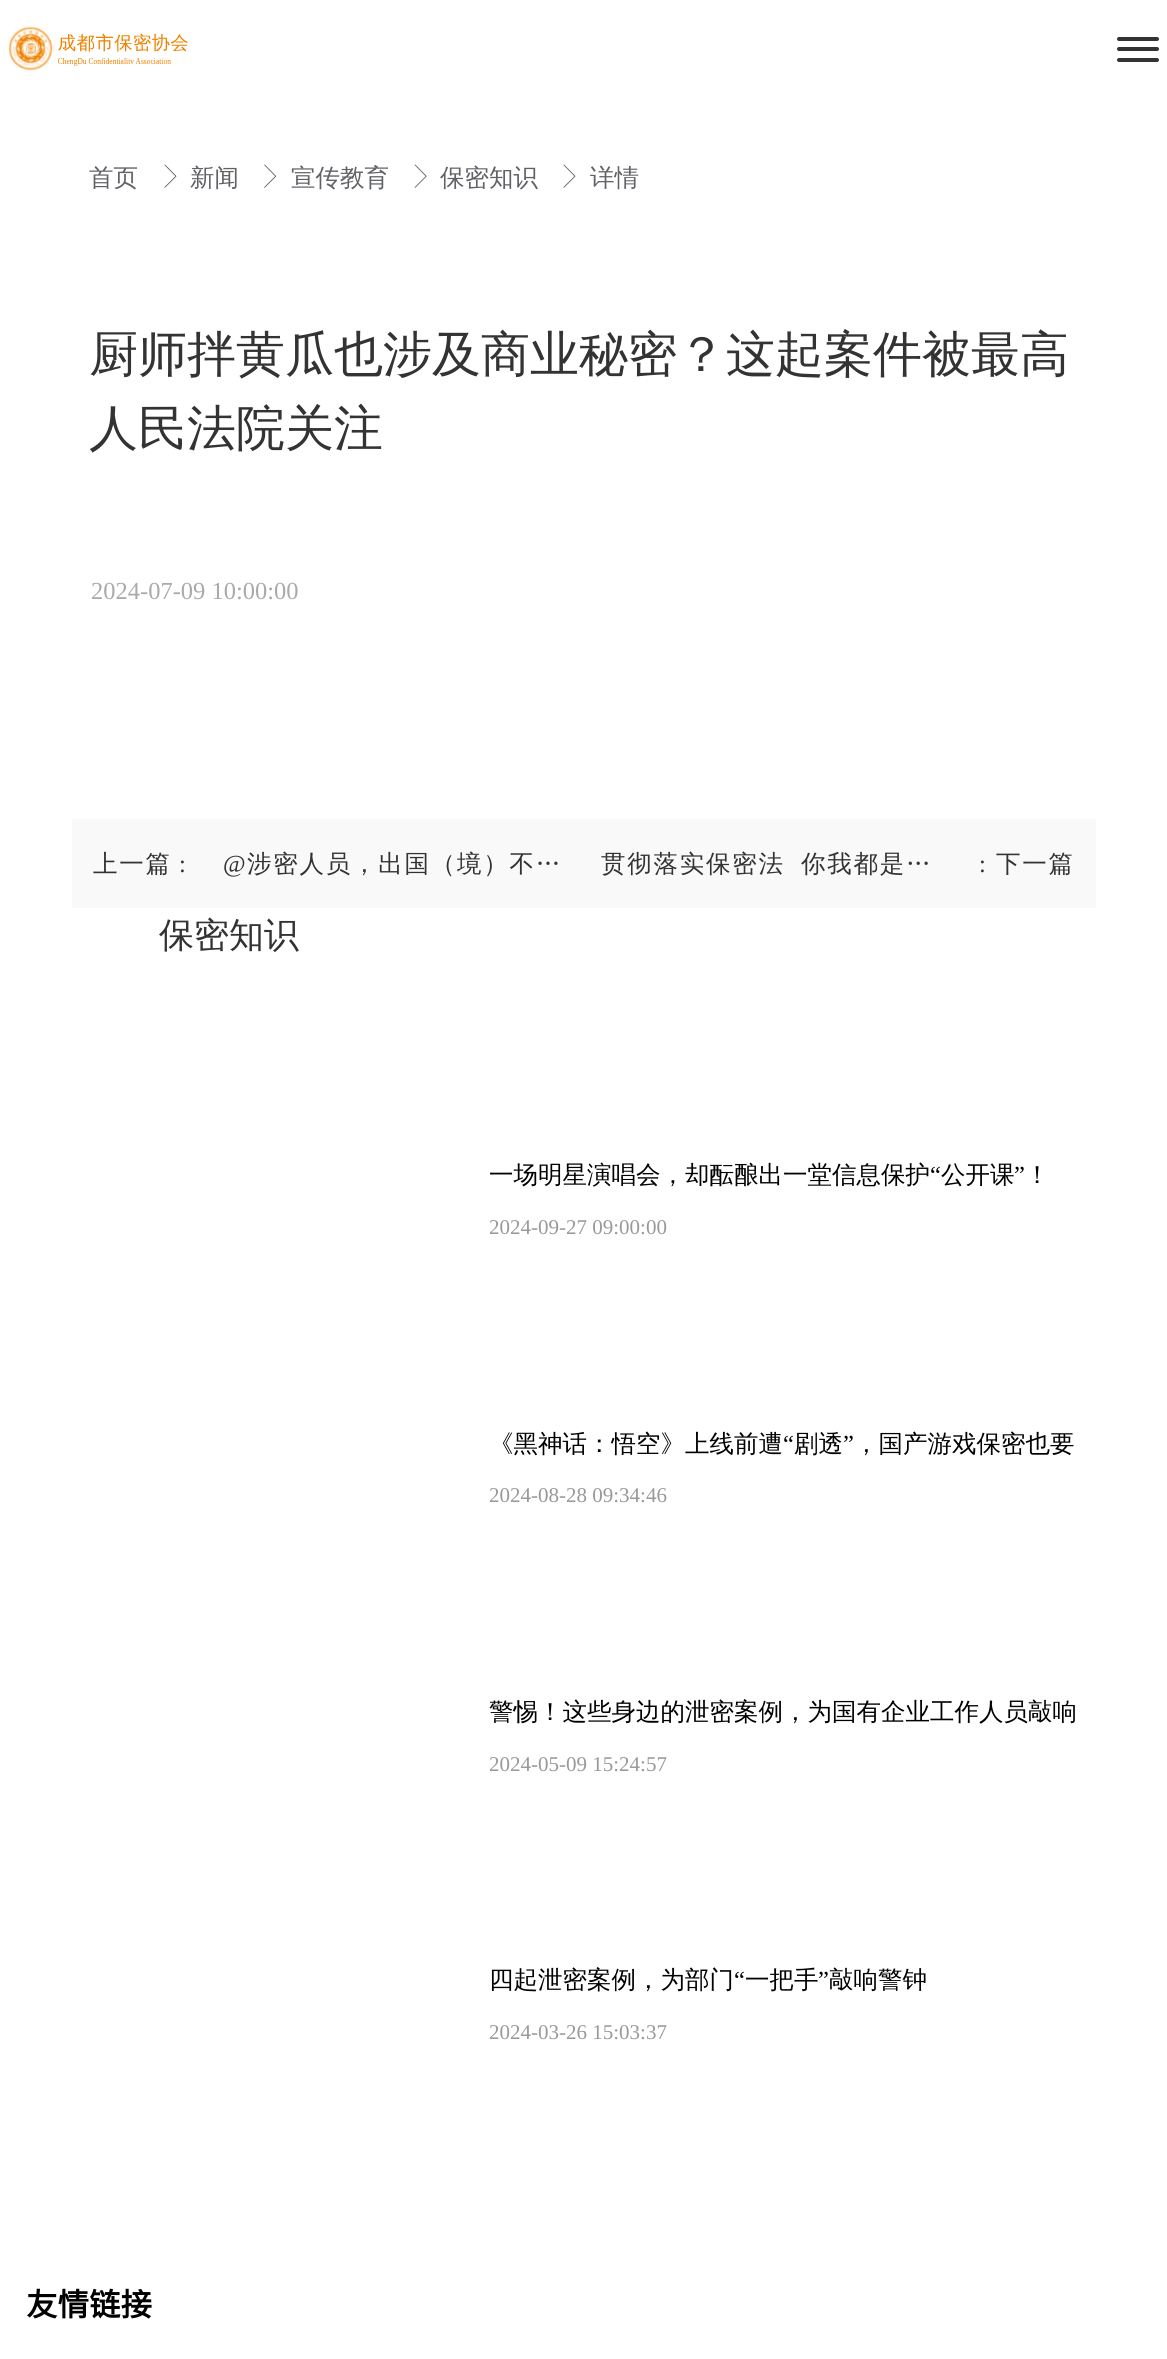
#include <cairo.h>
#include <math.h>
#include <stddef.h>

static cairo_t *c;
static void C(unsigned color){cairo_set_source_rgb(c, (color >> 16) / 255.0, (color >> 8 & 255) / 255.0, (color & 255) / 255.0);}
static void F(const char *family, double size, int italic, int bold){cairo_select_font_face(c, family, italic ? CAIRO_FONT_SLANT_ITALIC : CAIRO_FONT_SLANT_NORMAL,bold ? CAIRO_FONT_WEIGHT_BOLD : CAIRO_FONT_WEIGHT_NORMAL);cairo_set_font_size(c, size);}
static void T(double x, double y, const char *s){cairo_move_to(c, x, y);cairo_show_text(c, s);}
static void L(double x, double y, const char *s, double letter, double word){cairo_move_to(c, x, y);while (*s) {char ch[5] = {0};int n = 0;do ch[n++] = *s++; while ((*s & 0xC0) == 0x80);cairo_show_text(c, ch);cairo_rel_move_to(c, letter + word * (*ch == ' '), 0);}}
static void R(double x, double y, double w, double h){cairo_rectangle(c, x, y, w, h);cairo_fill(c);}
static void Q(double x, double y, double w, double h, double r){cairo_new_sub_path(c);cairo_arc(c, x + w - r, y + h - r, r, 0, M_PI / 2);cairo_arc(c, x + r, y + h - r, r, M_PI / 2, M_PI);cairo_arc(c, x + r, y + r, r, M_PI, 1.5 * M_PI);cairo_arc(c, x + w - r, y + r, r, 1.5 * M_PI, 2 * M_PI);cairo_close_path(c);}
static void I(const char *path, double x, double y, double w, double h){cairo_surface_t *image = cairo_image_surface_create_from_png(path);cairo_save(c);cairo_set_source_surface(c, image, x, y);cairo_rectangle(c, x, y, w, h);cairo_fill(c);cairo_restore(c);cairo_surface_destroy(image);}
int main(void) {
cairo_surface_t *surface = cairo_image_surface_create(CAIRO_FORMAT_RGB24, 1167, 2359);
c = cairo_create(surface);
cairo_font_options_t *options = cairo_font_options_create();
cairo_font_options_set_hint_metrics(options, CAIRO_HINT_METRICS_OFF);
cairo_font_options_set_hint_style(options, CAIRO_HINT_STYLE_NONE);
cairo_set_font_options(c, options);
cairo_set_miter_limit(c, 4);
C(0xffffff);
cairo_paint(c);
I("1.png",9,26,179,45);
C(0x333333);
Q(1117,37,42,4,2);
cairo_fill(c);
Q(1117,47,42,4,2);
cairo_fill(c);
Q(1117,58,42,4,2);
cairo_fill(c);
F("WenQuanYi Zen Hei Medium",24.5,0,0);
C(0x606266);
T(89,186,"首页");
I("2.png",164,164,13,24);
T(190,186,"新闻");
I("3.png",264,164,13,24);
T(291,186,"宣传教育");
I("4.png",414,164,13,24);
T(440,186,"保密知识");
I("2.png",563,164,13,24);
T(590,186,"详情");
F("WenQuanYi Zen Hei Medium",49,0,0);
C(0x333333);
T(89,371,"厨师拌黄瓜也涉及商业秘密？这起案件被最高");
T(89,445,"人民法院关注");
F("Liberation Serif",24.5,0,0);
C(0xaaaaaa);
T(91,599,"2024-07-09 10:00:00");
C(0xf9f9f9);
R(72,819,1024,89);
F("WenQuanYi Zen Hei Medium",24.5,0,0);
C(0x333333);
L(93,872,"上一篇",1.75,0);
F("Liberation Serif",24.5,0,0);
L(179,872,":",1.75,0);
L(223,872,"@",1.75,0);
F("WenQuanYi Zen Hei Medium",24.5,0,0);
L(247,872,"涉密人员，出国（境）不…",1.75,0);
L(601,872,"贯彻落实保密法",1.75,0);
L(801,872,"你我都是…",1.75,0);
F("Liberation Serif",24.5,0,0);
L(979,872,":",1.75,0);
F("WenQuanYi Zen Hei Medium",24.5,0,0);
L(996,872,"下一篇",1.75,0);
F("WenQuanYi Zen Hei Medium",35,0,0);
T(159,947,"保密知识");
F("WenQuanYi Zen Hei Medium",24.5,0,0);
C(0x000000);
T(489,1183,"一场明星演唱会，却酝酿出一堂信息保护");
F("Liberation Serif",24.5,0,0);
T(930,1183,"“");
F("WenQuanYi Zen Hei Medium",24.5,0,0);
T(941,1183,"公开课");
F("Liberation Serif",24.5,0,0);
T(1014,1183,"”");
F("WenQuanYi Zen Hei Medium",24.5,0,0);
T(1025,1183,"！");
F("Liberation Serif",21,0,0);
C(0x999999);
T(489,1234,"2024-09-27 09:00:00");
F("WenQuanYi Zen Hei Medium",24.5,0,0);
C(0x000000);
T(489,1452,"《黑神话：悟空》上线前遭");
F("Liberation Serif",24.5,0,0);
T(783,1452,"“");
F("WenQuanYi Zen Hei Medium",24.5,0,0);
T(794,1452,"剧透");
F("Liberation Serif",24.5,0,0);
T(843,1452,"”");
F("WenQuanYi Zen Hei Medium",24.5,0,0);
T(854,1452,"，国产游戏保密也要");
F("Liberation Serif",21,0,0);
C(0x999999);
T(489,1502,"2024-08-28 09:34:46");
F("WenQuanYi Zen Hei Medium",24.5,0,0);
C(0x000000);
T(489,1720,"警惕！这些身边的泄密案例，为国有企业工作人员敲响");
F("Liberation Serif",21,0,0);
C(0x999999);
T(489,1771,"2024-05-09 15:24:57");
F("WenQuanYi Zen Hei Medium",24.5,0,0);
C(0x000000);
T(489,1988,"四起泄密案例，为部门");
F("Liberation Serif",24.5,0,0);
T(734,1988,"“");
F("WenQuanYi Zen Hei Medium",24.5,0,0);
T(745,1988,"一把手");
F("Liberation Serif",24.5,0,0);
T(818,1988,"”");
F("WenQuanYi Zen Hei Medium",24.5,0,0);
T(829,1988,"敲响警钟");
F("Liberation Serif",21,0,0);
C(0x999999);
T(489,2039,"2024-03-26 15:03:37");
F("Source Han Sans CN",31.5,0,1);
C(0x000000);
T(26,2316,"友情链接");
cairo_surface_write_to_png(surface, "o.png");
cairo_font_options_destroy(options);
cairo_destroy(c);
cairo_surface_destroy(surface);
return 0;
}
